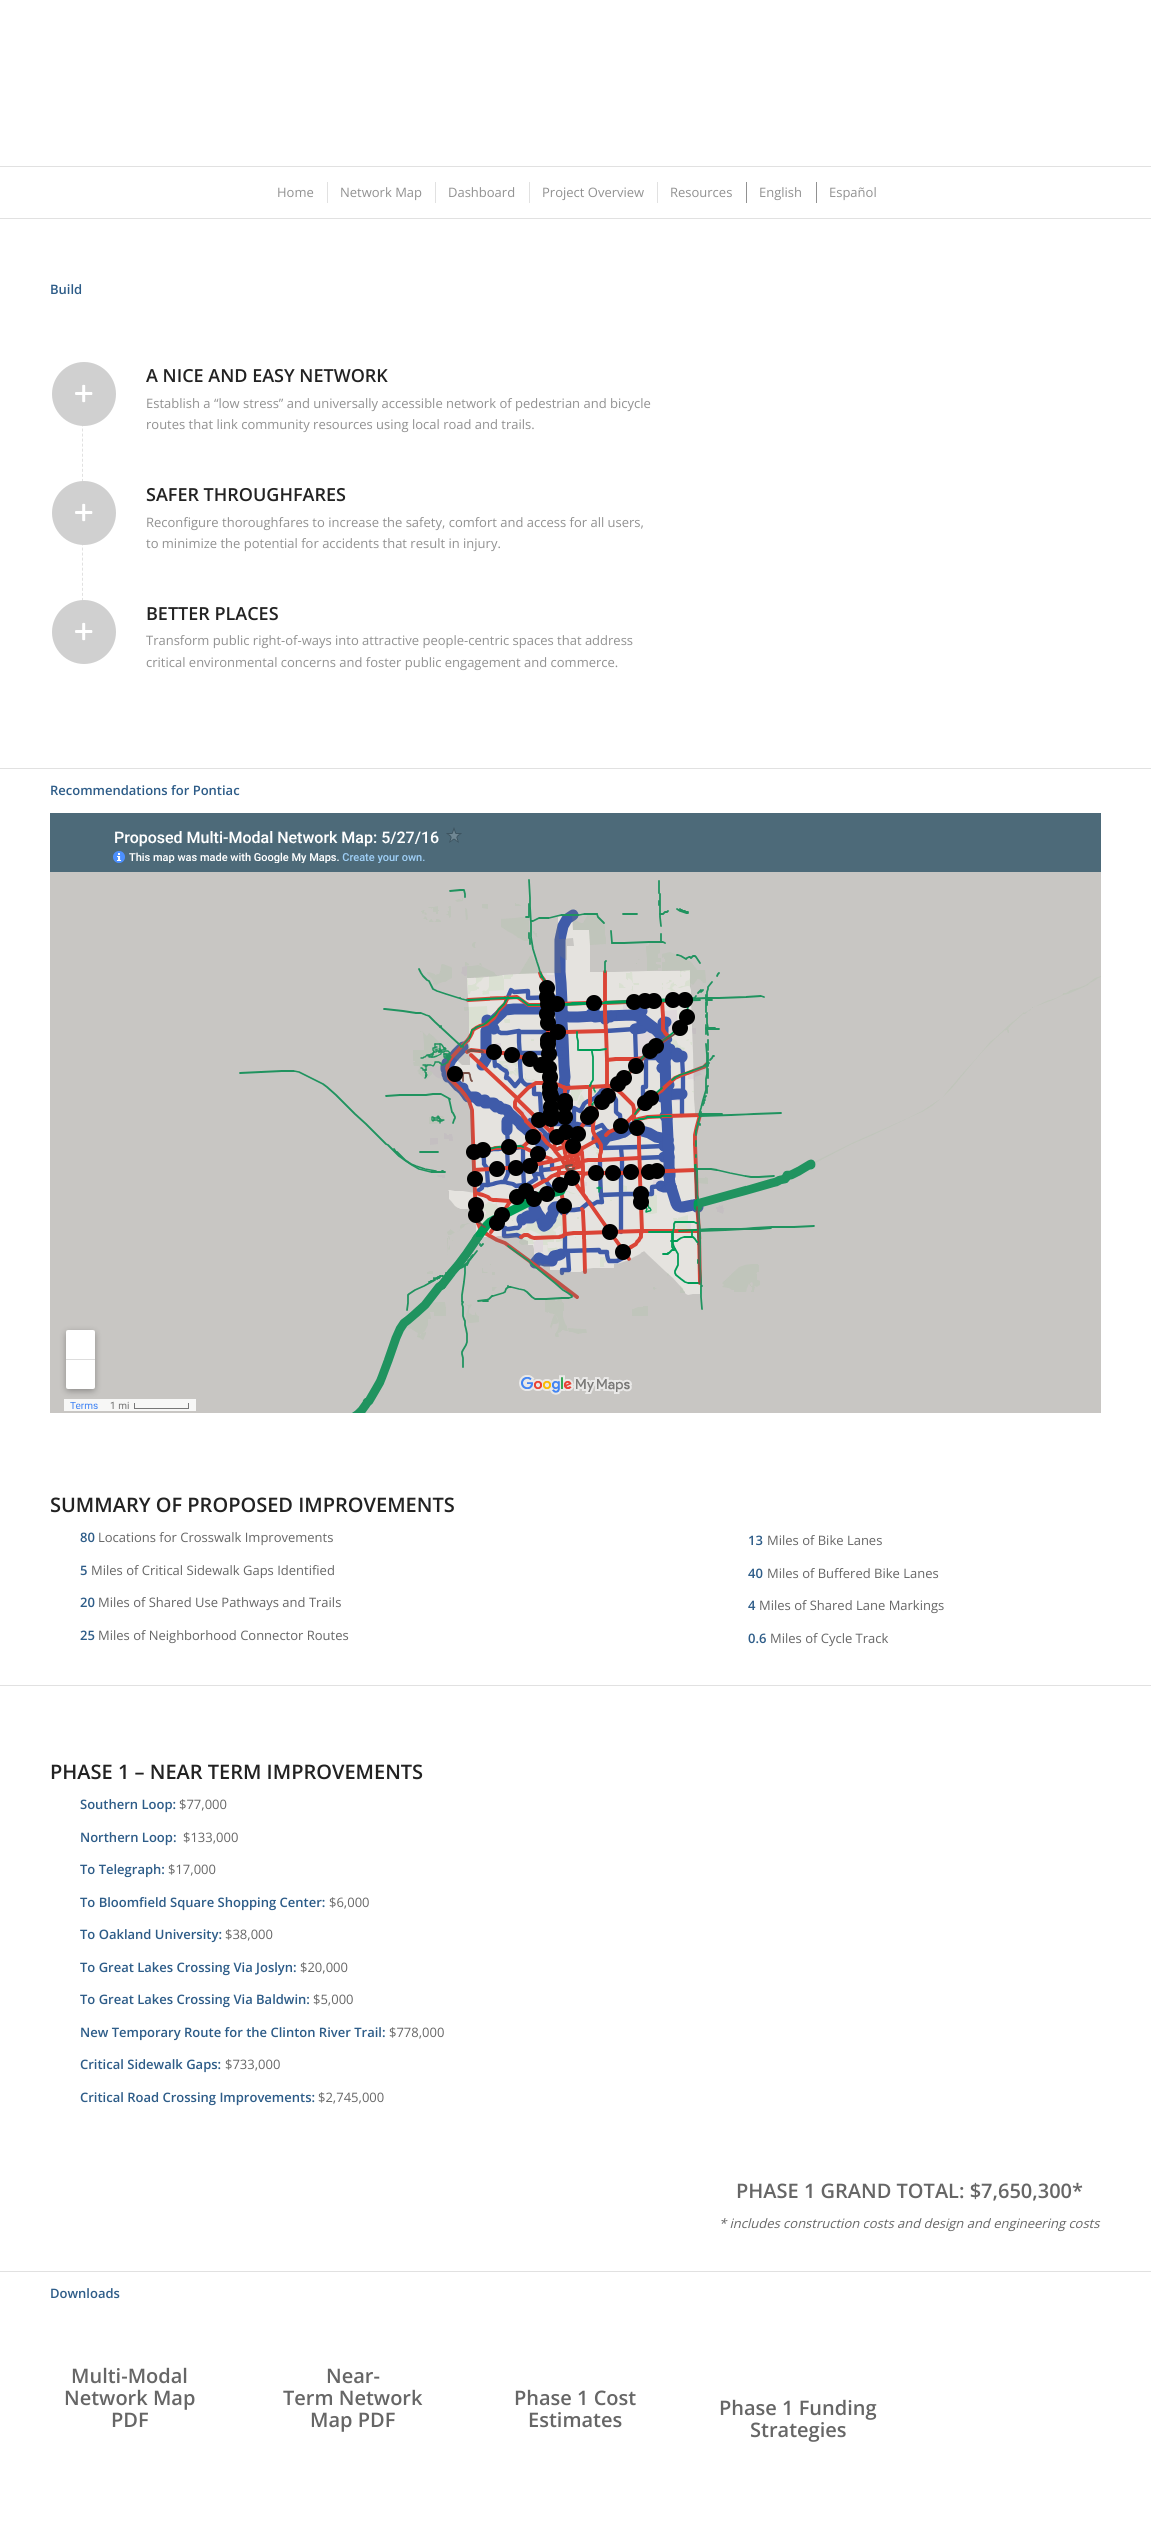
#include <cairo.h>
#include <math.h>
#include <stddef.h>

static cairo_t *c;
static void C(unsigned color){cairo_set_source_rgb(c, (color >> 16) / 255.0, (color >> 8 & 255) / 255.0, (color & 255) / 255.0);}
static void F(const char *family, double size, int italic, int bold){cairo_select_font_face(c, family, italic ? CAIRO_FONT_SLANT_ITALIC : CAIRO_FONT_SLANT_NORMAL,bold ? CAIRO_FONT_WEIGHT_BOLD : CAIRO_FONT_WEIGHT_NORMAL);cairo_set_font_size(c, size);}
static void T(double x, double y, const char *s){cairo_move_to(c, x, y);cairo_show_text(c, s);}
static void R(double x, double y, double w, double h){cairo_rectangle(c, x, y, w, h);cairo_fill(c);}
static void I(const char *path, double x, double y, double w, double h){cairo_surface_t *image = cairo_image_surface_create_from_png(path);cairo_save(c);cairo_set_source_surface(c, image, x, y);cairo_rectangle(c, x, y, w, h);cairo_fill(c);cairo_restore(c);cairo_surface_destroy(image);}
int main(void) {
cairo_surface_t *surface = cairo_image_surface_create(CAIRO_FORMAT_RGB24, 1151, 2526);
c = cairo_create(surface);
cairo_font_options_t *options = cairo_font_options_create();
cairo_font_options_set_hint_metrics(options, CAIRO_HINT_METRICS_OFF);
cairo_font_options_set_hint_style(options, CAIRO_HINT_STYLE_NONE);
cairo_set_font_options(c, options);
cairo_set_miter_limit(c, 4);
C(0xffffff);
cairo_paint(c);
C(0xe1e1e1);
R(0,166,1151,1);
R(0,218,1151,1);
F("Open Sans",13,0,0);
C(0x919191);
T(277,197,"Home");
C(0xe1e1e1);
R(327,182,1,21);
C(0x919191);
T(340,197,"Network Map");
C(0xe1e1e1);
R(435,182,1,21);
C(0x919191);
T(448,197,"Dashboard");
C(0xe1e1e1);
R(529,182,1,21);
C(0x919191);
T(542,197,"Project Overview");
C(0xe1e1e1);
R(657,182,1,21);
C(0x919191);
T(670,197,"Resources");
R(746,182,1,21);
T(759,197,"English");
R(816,182,1,21);
T(829,197,"Español");
F("Open Sans SemiBold",13,0,0);
C(0x2d5c88);
T(50,294,"Build");
cairo_new_path(c);
cairo_move_to(c,82.5,363);
cairo_line_to(c,82.5,482);
C(0xe1e1e1);
cairo_set_line_width(c,1);
cairo_set_dash(c,(double[]){3,2.04},2,0);
cairo_stroke(c);
C(0xd0d0d0);
cairo_arc(c,84,394,32,0,2 * M_PI);
cairo_fill(c);
I("1.png",75,384,18,19);
F("Open Sans SemiBold",18,0,0);
C(0x222222);
T(146,382,"A NICE AND EASY NETWORK");
F("Open Sans",13,0,0);
C(0x919191);
T(146,408,"Establish a “low stress” and universally accessible network of pedestrian and bicycle");
T(146,429,"routes that link community resources using local road and trails.");
cairo_new_path(c);
cairo_move_to(c,82.5,482);
cairo_line_to(c,82.5,601);
C(0xe1e1e1);
cairo_stroke(c);
C(0xd0d0d0);
cairo_arc(c,84,513,32,0,2 * M_PI);
cairo_fill(c);
I("1.png",75,503,18,19);
F("Open Sans SemiBold",18,0,0);
C(0x222222);
T(146,501,"SAFER THROUGHFARES");
F("Open Sans",13,0,0);
C(0x919191);
T(146,527,"Reconfigure thoroughfares to increase the safety, comfort and access for all users,");
T(146,548,"to minimize the potential for accidents that result in injury.");
C(0xd0d0d0);
cairo_new_path(c);
cairo_arc(c,84,632,32,0,2 * M_PI);
cairo_fill(c);
I("1.png",75,622,18,19);
F("Open Sans SemiBold",18,0,0);
C(0x222222);
T(146,620,"BETTER PLACES");
F("Open Sans",13,0,0);
C(0x919191);
T(146,645,"Transform public right-of-ways into attractive people-centric spaces that address");
T(146,667,"critical environmental concerns and foster public engagement and commerce.");
C(0xe1e1e1);
R(0,768,1151,1);
F("Open Sans SemiBold",13,0,0);
C(0x2d5c88);
T(50,795,"Recommendations for Pontiac");
I("2.png",50,813,1051,600);
F("Open Sans SemiBold",20,0,0);
C(0x222222);
T(50,1512,"SUMMARY OF PROPOSED IMPROVEMENTS");
F("Open Sans SemiBold",13,0,0);
C(0x2d5c88);
T(80,1542,"80");
F("Open Sans",13,0,0);
C(0x666666);
T(98,1542,"Locations for Crosswalk Improvements");
F("Open Sans SemiBold",13,0,0);
C(0x2d5c88);
T(80,1575,"5");
F("Open Sans",13,0,0);
C(0x666666);
T(91,1575,"Miles of Critical Sidewalk Gaps Identified");
F("Open Sans SemiBold",13,0,0);
C(0x2d5c88);
T(80,1607,"20");
F("Open Sans",13,0,0);
C(0x666666);
T(98,1607,"Miles of Shared Use Pathways and Trails");
F("Open Sans SemiBold",13,0,0);
C(0x2d5c88);
T(80,1640,"25");
F("Open Sans",13,0,0);
C(0x666666);
T(98,1640,"Miles of Neighborhood Connector Routes");
F("Open Sans SemiBold",13,0,0);
C(0x2d5c88);
T(748,1545,"13");
F("Open Sans",13,0,0);
C(0x666666);
T(767,1545,"Miles of Bike Lanes");
F("Open Sans SemiBold",13,0,0);
C(0x2d5c88);
T(748,1578,"40");
F("Open Sans",13,0,0);
C(0x666666);
T(767,1578,"Miles of Buffered Bike Lanes");
F("Open Sans SemiBold",13,0,0);
C(0x2d5c88);
T(748,1610,"4");
F("Open Sans",13,0,0);
C(0x666666);
T(759,1610,"Miles of Shared Lane Markings");
F("Open Sans SemiBold",13,0,0);
C(0x2d5c88);
T(748,1643,"0.6");
F("Open Sans",13,0,0);
C(0x666666);
T(770,1643,"Miles of Cycle Track");
C(0xe1e1e1);
R(0,1685,1151,1);
F("Open Sans SemiBold",20,0,0);
C(0x222222);
T(50,1779,"PHASE 1 – NEAR TERM IMPROVEMENTS");
F("Open Sans SemiBold",13,0,0);
C(0x2d5c88);
T(80,1809,"Southern Loop:");
F("Open Sans",13,0,0);
C(0x666666);
T(179,1809,"$77,000");
F("Open Sans SemiBold",13,0,0);
C(0x2d5c88);
T(80,1842,"Northern Loop:");
F("Open Sans",13,0,0);
C(0x666666);
T(183,1842,"$133,000");
F("Open Sans SemiBold",13,0,0);
C(0x2d5c88);
T(80,1874,"To Telegraph:");
F("Open Sans",13,0,0);
C(0x666666);
T(168,1874,"$17,000");
F("Open Sans SemiBold",13,0,0);
C(0x2d5c88);
T(80,1907,"To Bloomfield Square Shopping Center:");
F("Open Sans",13,0,0);
C(0x666666);
T(329,1907,"$6,000");
F("Open Sans SemiBold",13,0,0);
C(0x2d5c88);
T(80,1939,"To Oakland University:");
F("Open Sans",13,0,0);
C(0x666666);
T(225,1939,"$38,000");
F("Open Sans SemiBold",13,0,0);
C(0x2d5c88);
T(80,1972,"To Great Lakes Crossing Via Joslyn:");
F("Open Sans",13,0,0);
C(0x666666);
T(300,1972,"$20,000");
F("Open Sans SemiBold",13,0,0);
C(0x2d5c88);
T(80,2004,"To Great Lakes Crossing Via Baldwin:");
F("Open Sans",13,0,0);
C(0x666666);
T(313,2004,"$5,000");
F("Open Sans SemiBold",13,0,0);
C(0x2d5c88);
T(80,2037,"New Temporary Route for the Clinton River Trail:");
F("Open Sans",13,0,0);
C(0x666666);
T(389,2037,"$778,000");
F("Open Sans SemiBold",13,0,0);
C(0x2d5c88);
T(80,2069,"Critical Sidewalk Gaps:");
F("Open Sans",13,0,0);
C(0x666666);
T(225,2069,"$733,000");
F("Open Sans SemiBold",13,0,0);
C(0x2d5c88);
T(80,2102,"Critical Road Crossing Improvements:");
F("Open Sans",13,0,0);
C(0x666666);
T(318,2102,"$2,745,000");
F("Open Sans SemiBold",20,0,0);
T(736,2198,"PHASE 1 GRAND TOTAL: $7,650,300*");
F("Open Sans",13,1,0);
T(719,2228,"* includes construction costs and design and engineering costs");
C(0xe1e1e1);
R(0,2271,1151,1);
F("Open Sans SemiBold",13,0,0);
C(0x2d5c88);
T(50,2298,"Downloads");
F("Open Sans SemiBold",20,0,0);
C(0x666666);
T(71,2383,"Multi-Modal");
T(64,2405,"Network Map");
T(111,2427,"PDF");
T(326,2383,"Near-");
T(283,2405,"Term Network");
T(310,2427,"Map PDF");
T(514,2405,"Phase 1 Cost");
T(528,2427,"Estimates");
T(719,2415,"Phase 1 Funding");
T(750,2437,"Strategies");
cairo_surface_write_to_png(surface, "o.png");
cairo_font_options_destroy(options);
cairo_destroy(c);
cairo_surface_destroy(surface);
return 0;
}
